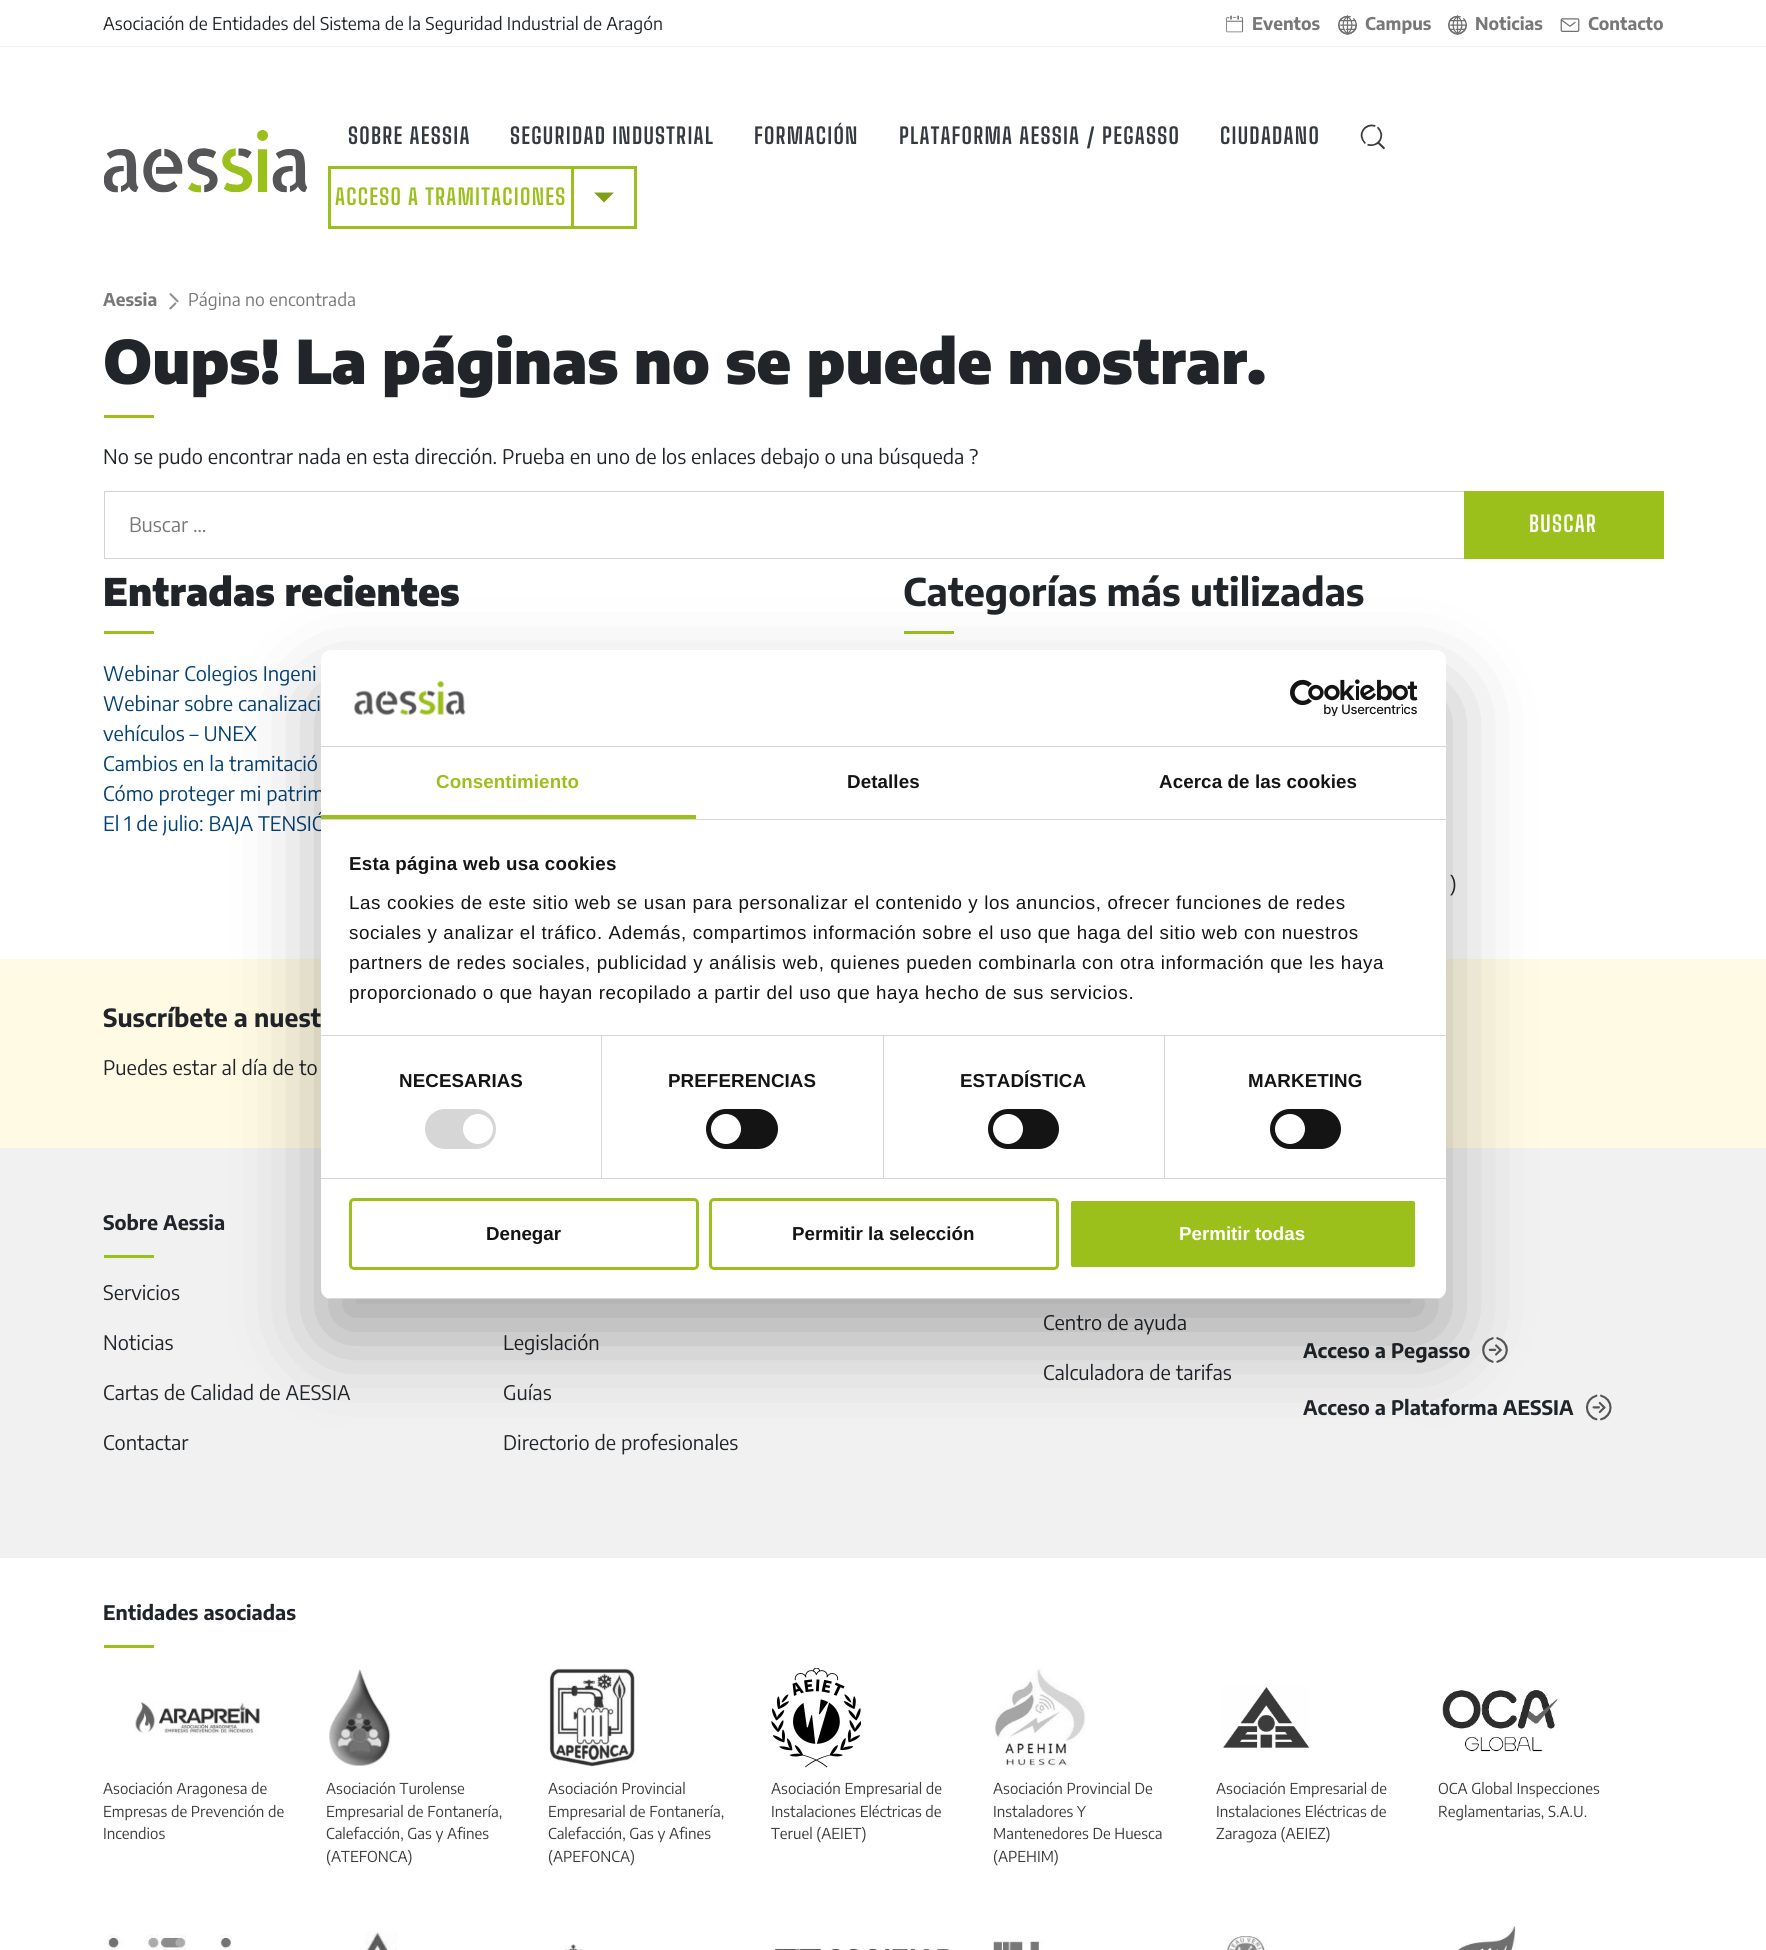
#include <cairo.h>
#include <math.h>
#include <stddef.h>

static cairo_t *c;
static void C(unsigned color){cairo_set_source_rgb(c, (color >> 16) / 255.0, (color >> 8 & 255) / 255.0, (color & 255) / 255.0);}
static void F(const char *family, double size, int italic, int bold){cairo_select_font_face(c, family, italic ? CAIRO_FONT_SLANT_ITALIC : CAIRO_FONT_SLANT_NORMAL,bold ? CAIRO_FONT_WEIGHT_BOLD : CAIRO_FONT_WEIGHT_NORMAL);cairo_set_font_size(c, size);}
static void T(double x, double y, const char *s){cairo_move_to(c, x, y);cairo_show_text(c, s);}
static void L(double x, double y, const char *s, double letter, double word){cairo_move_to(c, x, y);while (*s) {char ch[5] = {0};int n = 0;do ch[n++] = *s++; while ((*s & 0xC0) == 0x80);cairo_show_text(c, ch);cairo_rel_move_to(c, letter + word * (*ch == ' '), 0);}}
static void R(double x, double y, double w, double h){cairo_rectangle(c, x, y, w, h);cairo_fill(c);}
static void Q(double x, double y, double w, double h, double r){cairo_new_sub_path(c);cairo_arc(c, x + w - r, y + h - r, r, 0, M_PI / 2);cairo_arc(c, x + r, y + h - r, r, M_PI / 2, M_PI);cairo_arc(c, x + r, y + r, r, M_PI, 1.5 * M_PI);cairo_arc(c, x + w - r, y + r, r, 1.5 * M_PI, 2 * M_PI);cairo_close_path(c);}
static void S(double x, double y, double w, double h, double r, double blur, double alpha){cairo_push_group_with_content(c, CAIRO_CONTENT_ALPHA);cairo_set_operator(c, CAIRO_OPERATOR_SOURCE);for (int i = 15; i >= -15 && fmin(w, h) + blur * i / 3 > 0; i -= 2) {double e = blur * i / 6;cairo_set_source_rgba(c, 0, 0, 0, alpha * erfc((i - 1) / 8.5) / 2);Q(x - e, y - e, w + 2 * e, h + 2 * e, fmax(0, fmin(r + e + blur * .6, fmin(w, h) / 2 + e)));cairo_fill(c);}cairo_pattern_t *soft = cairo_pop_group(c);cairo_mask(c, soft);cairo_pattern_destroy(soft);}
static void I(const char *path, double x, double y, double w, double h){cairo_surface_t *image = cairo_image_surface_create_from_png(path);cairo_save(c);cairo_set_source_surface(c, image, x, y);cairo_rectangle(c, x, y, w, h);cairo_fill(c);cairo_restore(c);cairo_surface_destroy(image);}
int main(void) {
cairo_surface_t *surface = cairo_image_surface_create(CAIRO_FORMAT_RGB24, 1766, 1950);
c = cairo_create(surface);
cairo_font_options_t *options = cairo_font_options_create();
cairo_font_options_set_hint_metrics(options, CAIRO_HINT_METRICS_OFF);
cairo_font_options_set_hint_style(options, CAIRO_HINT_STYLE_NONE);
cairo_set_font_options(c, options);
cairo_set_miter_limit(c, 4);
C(0xffffff);
cairo_paint(c);
C(0xf1f1f1);
R(0,46,1766,1);
F("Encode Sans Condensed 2 Thin",17.5,0,0);
C(0x212529);
T(103,30,"Asociación de Entidades del Sistema de la Seguridad Industrial de Aragón");
I("1.png",1226,15,18,18);
F("Encode Sans Condensed Thin",17.5,0,0);
C(0x787878);
T(1252,30,"Eventos");
I("2.png",1338,15,19,20);
T(1365,30,"Campus");
I("2.png",1448,15,19,20);
T(1475,30,"Noticias");
I("3.png",1560,18,20,14);
T(1588,30,"Contacto");
I("4.png",104,130,204,63);
F("Big Shoulders Text Thin",22,0,0);
C(0x343a40);
L(348,144,"SOBRE AESSIA",1.25,0);
L(510,144,"SEGURIDAD INDUSTRIAL",1.25,0);
L(754,144,"FORMACIÓN",1.25,0);
L(899,144,"PLATAFORMA AESSIA / PEGASSO",1.25,0);
L(1220,144,"CIUDADANO",1.25,0);
I("5.png",1360,124,25,26);
cairo_rectangle(c,329.5,167.5,243,60);
C(0x9bc01c);
cairo_set_line_width(c,3);
cairo_stroke(c);
L(335,205,"ACCESO A TRAMITACIONES",1.25,0);
R(574,166,62,3);
R(634,166,3,63);
R(574,226,62,3);
C(0x809f17);
cairo_new_path(c);
cairo_move_to(c,594,192.5);
cairo_line_to(c,614,192.5);
cairo_line_to(c,604,202.5);
cairo_close_path(c);
cairo_fill(c);
F("Encode Sans Condensed Thin",17.5,0,0);
C(0x787878);
T(103,306,"Aessia");
I("6.png",169,293,10,17);
F("Encode Sans Condensed 2 Thin",17.5,0,0);
T(188,306,"Página no encontrada");
F("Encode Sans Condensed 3 Thin",60,0,0);
C(0x212529);
T(103,384,"Oups! La páginas no se puede mostrar.");
C(0x9bc01c);
R(104,415,50,3);
F("Encode Sans Condensed 2 Thin",20,0,0);
C(0x212529);
T(103,464,"No se pudo encontrar nada en esta dirección. Prueba en uno de los enlaces debajo o una búsqueda ?");
cairo_rectangle(c,104.5,491.5,1360,67);
C(0xced4da);
cairo_set_line_width(c,1);
cairo_stroke(c);
C(0x787878);
T(129,532,"Buscar …");
C(0x9bc01c);
R(1464,491,200,68);
F("Big Shoulders Text Thin",22,0,0);
C(0xffffff);
L(1529,532,"BUSCAR",1.25,0);
F("Encode Sans Condensed 3 Thin",38,0,0);
C(0x212529);
T(103,606,"Entradas recientes");
C(0x9bc01c);
R(104,631,50,3);
F("Encode Sans Condensed 2 Thin",20,0,0);
C(0x044274);
T(103,681,"Webinar Colegios Ingeni");
T(103,711,"Webinar sobre canalizaci");
T(103,741,"vehículos – UNEX");
T(103,771,"Cambios en la tramitació");
T(103,801,"Cómo proteger mi patrim");
T(103,831,"El 1 de julio: BAJA TENSIÓ");
F("Encode Sans Condensed Thin",38,0,0);
C(0x212529);
T(903,606,"Categorías más utilizadas");
C(0x9bc01c);
R(904,631,50,3);
F("Encode Sans Condensed 2 Thin",20,0,0);
C(0x212529);
T(1450,891,")");
C(0xfffae3);
R(0,959,1766,189);
F("Encode Sans Condensed Thin",25,0,0);
C(0x212529);
T(103,1027,"Suscríbete a nuest");
F("Encode Sans Condensed 2 Thin",20,0,0);
T(103,1075,"Puedes estar al día de to");
C(0xf1f1f1);
R(0,1148,1766,410);
F("Encode Sans Condensed Thin",20,0,0);
C(0x212529);
T(103,1230,"Sobre Aessia");
C(0x9bc01c);
R(104,1255,50,3);
F("Encode Sans Condensed 2 Thin",20,0,0);
C(0x212529);
T(103,1300,"Servicios");
T(103,1350,"Noticias");
T(103,1400,"Cartas de Calidad de AESSIA");
T(103,1450,"Contactar");
T(503,1350,"Legislación");
T(503,1400,"Guías");
T(503,1450,"Directorio de profesionales");
T(1043,1330,"Centro de ayuda");
T(1043,1380,"Calculadora de tarifas");
F("Encode Sans Condensed Thin",20,0,0);
T(1303,1358,"Acceso a Pegasso");
I("7.png",1482,1337,26,26);
T(1303,1415,"Acceso a Plataforma AESSIA");
I("8.png",1585,1394,27,27);
T(103,1620,"Entidades asociadas");
C(0x9bc01c);
R(104,1645,50,3);
I("9.png",135,1702,125,32);
F("Encode Sans Condensed 2 Thin",15,0,0);
C(0x3c3c3c);
T(103,1794,"Asociación Aragonesa de");
T(103,1817,"Empresas de Prevención de");
T(103,1839,"Incendios");
I("10.png",329,1669,62,97);
T(326,1794,"Asociación Turolense");
T(326,1817,"Empresarial de Fontanería,");
T(326,1839,"Calefacción, Gas y Afines");
T(326,1862,"(ATEFONCA)");
I("11.png",549,1668,86,99);
T(548,1794,"Asociación Provincial");
T(548,1817,"Empresarial de Fontanería,");
T(548,1839,"Calefacción, Gas y Afines");
T(548,1862,"(APEFONCA)");
I("12.png",771,1668,90,100);
T(771,1794,"Asociación Empresarial de");
T(771,1817,"Instalaciones Eléctricas de");
T(771,1839,"Teruel (AEIET)");
I("13.png",994,1667,92,101);
T(993,1794,"Asociación Provincial De");
T(993,1817,"Instaladores Y");
T(993,1839,"Mantenedores De Huesca");
T(993,1862,"(APEHIM)");
I("14.png",1222,1686,88,64);
T(1216,1794,"Asociación Empresarial de");
T(1216,1817,"Instalaciones Eléctricas de");
T(1216,1839,"Zaragoza (AEIEZ)");
I("15.png",1442,1690,116,62);
T(1438,1794,"OCA Global Inspecciones");
T(1438,1817,"Reglamentarias, S.A.U.");
I("16.png",107,1934,124,16);
I("17.png",365,1931,32,19);
I("18.png",564,1944,18,6);
I("19.png",774,1948,178,2);
I("20.png",993,1939,52,11);
I("21.png",1226,1936,42,14);
I("22.png",1457,1926,59,24);
C(0x000000);
S(321,690,1125,649,10,42.5,.3);
C(0xffffff);
Q(321,650,1125,649,10);
cairo_fill(c);
C(0xd6d6d6);
R(321,746,1125,1);
I("23.png",353,680,113,36);
I("24.png",1290,679,128,37);
R(321,819,1125,1);
C(0x9bc01c);
R(321,815,375,4);
F("Liberation Sans",18.75,0,1);
L(436,788,"Consentimiento",.1,0);
C(0x141414);
L(847,788,"Detalles",.1,0);
L(1159,788,"Acerca de las cookies",.1,0);
C(0xd6d6d6);
R(321,1035,1125,1);
C(0x141414);
L(349,870,"Esta página web usa cookies",.3,0);
F("Liberation Sans",18.75,0,0);
L(349,909,"Las cookies de este sitio web se usan para personalizar el contenido y los anuncios, ofrecer funciones de redes",.62,0);
L(349,939,"sociales y analizar el tráfico. Además, compartimos información sobre el uso que haga del sitio web con nuestros",.62,0);
L(349,969,"partners de redes sociales, publicidad y análisis web, quienes pueden combinarla con otra información que les haya",.62,0);
L(349,999,"proporcionado o que hayan recopilado a partir del uso que haya hecho de sus servicios.",.62,0);
C(0xd6d6d6);
R(321,1178,1125,1);
R(601,1036,1,142);
F("Liberation Sans",18.75,0,1);
C(0x141414);
L(399,1087,"NECESARIAS",.1,0);
C(0xd6d6d6);
Q(425,1109,71,40,20);
cairo_fill(c);
C(0xffffff);
cairo_arc(c,478,1129,15,0,2 * M_PI);
cairo_fill(c);
C(0xd6d6d6);
R(883,1036,1,142);
C(0x141414);
L(668,1087,"PREFERENCIAS",.1,0);
Q(706,1109,72,40,20);
cairo_fill(c);
C(0xffffff);
cairo_arc(c,726,1129,15,0,2 * M_PI);
cairo_fill(c);
C(0xd6d6d6);
R(1164,1036,1,142);
C(0x141414);
L(960,1087,"ESTADÍSTICA",.1,0);
Q(988,1109,71,40,20);
cairo_fill(c);
C(0xffffff);
cairo_arc(c,1008,1129,15,0,2 * M_PI);
cairo_fill(c);
C(0x141414);
L(1248,1087,"MARKETING",.1,0);
Q(1270,1109,71,40,20);
cairo_fill(c);
C(0xffffff);
cairo_arc(c,1290,1129,15,0,2 * M_PI);
cairo_fill(c);
cairo_save(c);
Q(321,650,1125,649,10);
cairo_clip(c);
C(0xd6d6d6);
R(321,1298,1125,1);
cairo_restore(c);
Q(350.5,1199.5,347,69,3.5);
C(0x9bc01c);
cairo_set_line_width(c,3);
cairo_stroke(c);
C(0x141414);
T(486,1240,"Denegar");
Q(710.5,1199.5,347,69,3.5);
C(0x9bc01c);
cairo_stroke(c);
C(0x141414);
T(792,1240,"Permitir la selección");
C(0x9bc01c);
Q(1069.5,1199.5,347,69,3.5);
cairo_fill_preserve(c);
C(0xffffff);
cairo_stroke(c);
T(1179,1240,"Permitir todas");
cairo_surface_write_to_png(surface, "o.png");
cairo_font_options_destroy(options);
cairo_destroy(c);
cairo_surface_destroy(surface);
return 0;
}
